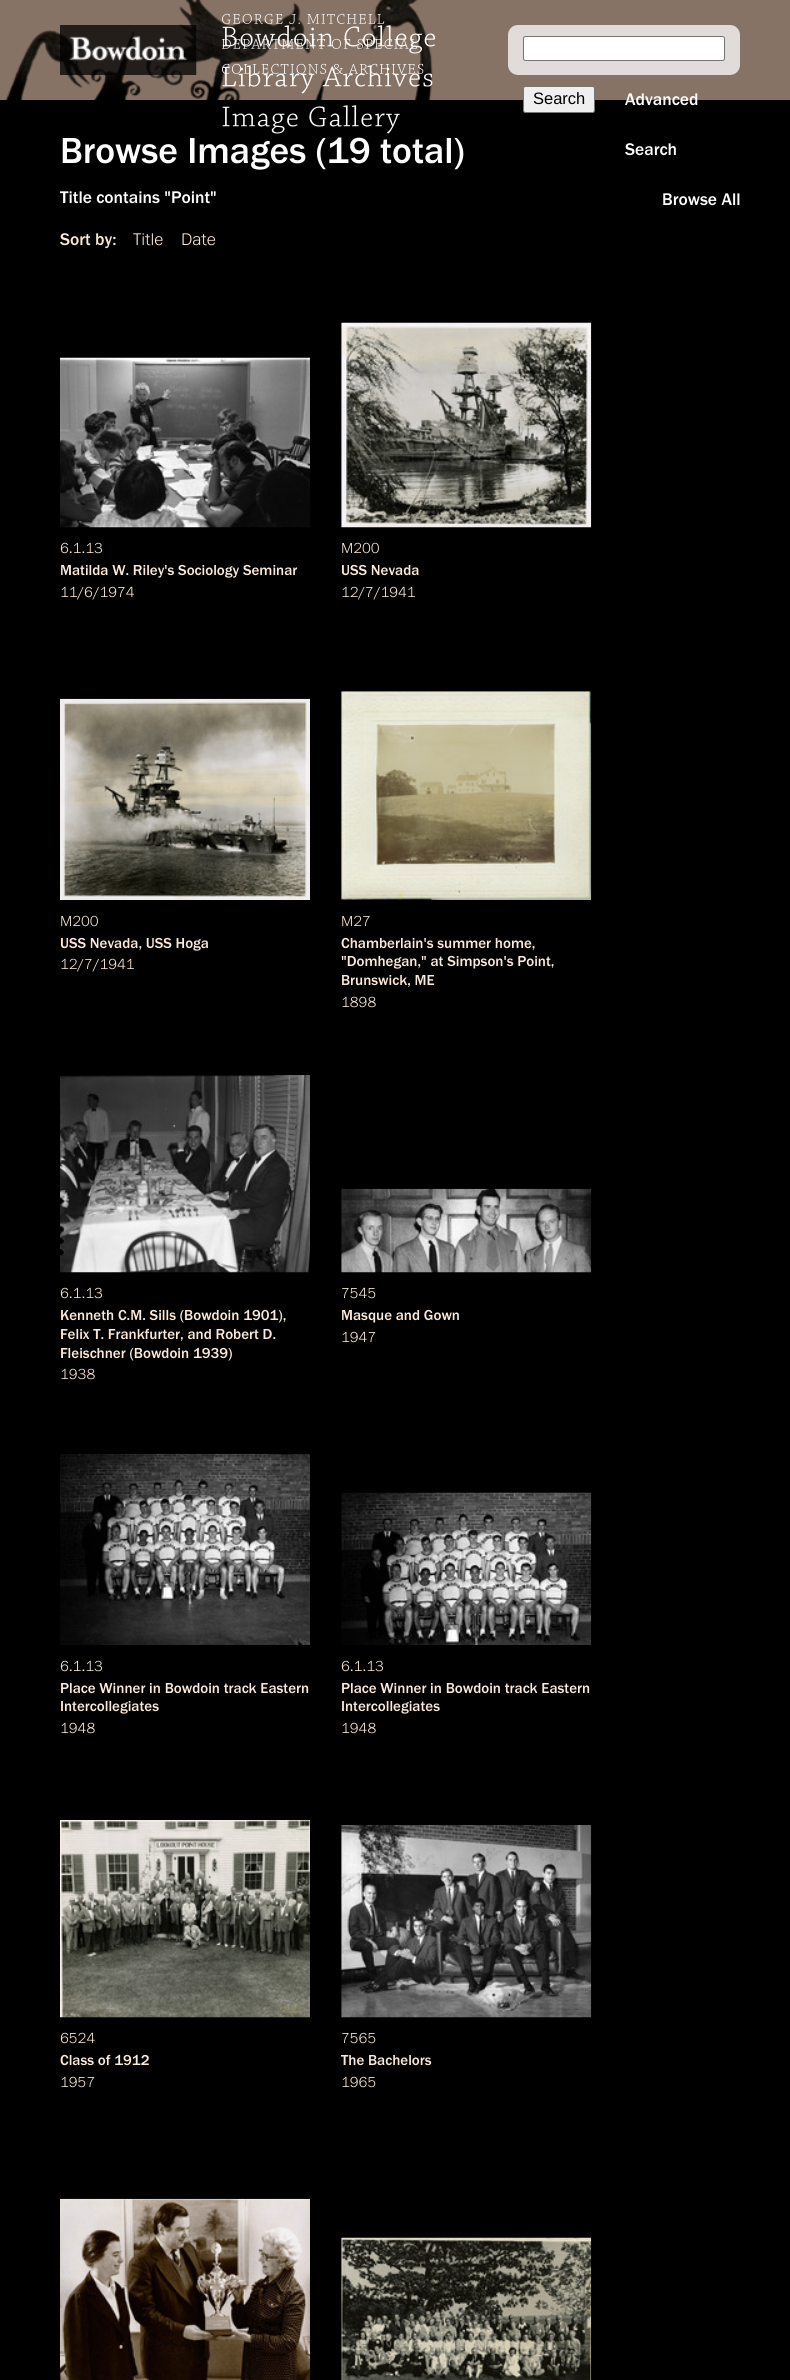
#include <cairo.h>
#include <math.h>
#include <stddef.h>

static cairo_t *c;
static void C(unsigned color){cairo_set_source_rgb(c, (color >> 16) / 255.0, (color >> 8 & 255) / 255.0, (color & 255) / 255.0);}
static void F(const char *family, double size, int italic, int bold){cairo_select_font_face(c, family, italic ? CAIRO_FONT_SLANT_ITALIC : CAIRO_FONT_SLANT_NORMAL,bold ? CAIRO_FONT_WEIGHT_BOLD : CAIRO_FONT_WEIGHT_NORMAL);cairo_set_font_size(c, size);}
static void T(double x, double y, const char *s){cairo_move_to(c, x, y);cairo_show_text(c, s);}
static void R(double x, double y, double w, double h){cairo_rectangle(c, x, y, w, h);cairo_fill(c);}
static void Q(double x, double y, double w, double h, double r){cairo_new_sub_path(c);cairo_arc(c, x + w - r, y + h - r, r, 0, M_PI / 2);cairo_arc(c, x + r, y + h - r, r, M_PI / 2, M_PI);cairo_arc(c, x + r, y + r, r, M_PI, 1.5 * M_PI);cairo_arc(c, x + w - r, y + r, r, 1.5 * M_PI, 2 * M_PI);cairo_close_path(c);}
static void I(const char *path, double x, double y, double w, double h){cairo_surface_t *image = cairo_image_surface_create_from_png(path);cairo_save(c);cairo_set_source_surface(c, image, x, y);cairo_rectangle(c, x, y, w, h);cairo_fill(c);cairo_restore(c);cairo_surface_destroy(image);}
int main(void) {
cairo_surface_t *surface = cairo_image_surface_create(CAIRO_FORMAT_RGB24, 790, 2380);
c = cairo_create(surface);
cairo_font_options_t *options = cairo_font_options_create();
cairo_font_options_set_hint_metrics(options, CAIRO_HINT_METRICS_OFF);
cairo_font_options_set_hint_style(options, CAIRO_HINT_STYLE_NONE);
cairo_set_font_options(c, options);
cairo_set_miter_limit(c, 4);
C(0x000000);
cairo_paint(c);
F("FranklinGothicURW",37.5,0,0);
C(0xffffff);
T(60,163,"Browse Images (19 total)");
F("FranklinGothicURW",17.5,0,0);
T(60,203,"Title contains \"Point\"");
C(0xfce9d9);
T(60,245,"Sort by:");
F("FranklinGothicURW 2",17.5,0,0);
T(133,245,"Title");
T(181,245,"Date");
I("1.png",60,357,250,171);
F("FranklinGothicURW 2",15,0,0);
T(60,553,"6.1.13");
F("FranklinGothicURW",15,0,0);
T(60,575,"Matilda W. Riley's Sociology Seminar");
F("FranklinGothicURW 2",15,0,0);
T(60,597,"11/6/1974");
I("2.png",341,322,251,206);
T(341,553,"M200");
F("FranklinGothicURW",15,0,0);
T(341,575,"USS Nevada");
F("FranklinGothicURW 2",15,0,0);
T(341,597,"12/7/1941");
I("3.png",60,698,250,202);
T(60,926,"M200");
F("FranklinGothicURW",15,0,0);
T(60,948,"USS Nevada, USS Hoga");
F("FranklinGothicURW 2",15,0,0);
T(60,969,"12/7/1941");
I("4.png",341,691,251,209);
T(341,926,"M27");
F("FranklinGothicURW",15,0,0);
T(341,948,"Chamberlain's summer home,");
T(341,966,"\"Domhegan,\" at Simpson's Point,");
T(341,985,"Brunswick, ME");
F("FranklinGothicURW 2",15,0,0);
T(341,1007,"1898");
I("5.png",60,1075,250,198);
T(60,1298,"6.1.13");
F("FranklinGothicURW",15,0,0);
T(60,1320,"Kenneth C.M. Sills (Bowdoin 1901),");
T(60,1339,"Felix T. Frankfurter, and Robert D.");
T(60,1358,"Fleischner (Bowdoin 1939)");
F("FranklinGothicURW 2",15,0,0);
T(60,1379,"1938");
I("6.png",341,1188,251,85);
T(341,1298,"7545");
F("FranklinGothicURW",15,0,0);
T(341,1320,"Masque and Gown");
F("FranklinGothicURW 2",15,0,0);
T(341,1342,"1947");
I("7.png",60,1453,250,192);
T(60,1671,"6.1.13");
F("FranklinGothicURW",15,0,0);
T(60,1693,"Place Winner in Bowdoin track Eastern");
T(60,1711,"Intercollegiates");
F("FranklinGothicURW 2",15,0,0);
T(60,1733,"1948");
I("8.png",341,1492,251,153);
T(341,1671,"6.1.13");
F("FranklinGothicURW",15,0,0);
T(341,1693,"Place Winner in Bowdoin track Eastern");
T(341,1711,"Intercollegiates");
F("FranklinGothicURW 2",15,0,0);
T(341,1733,"1948");
I("9.png",60,1820,250,198);
T(60,2043,"6524");
F("FranklinGothicURW",15,0,0);
T(60,2065,"Class of 1912");
F("FranklinGothicURW 2",15,0,0);
T(60,2087,"1957");
I("10.png",341,1825,251,193);
T(341,2043,"7565");
F("FranklinGothicURW",15,0,0);
T(341,2065,"The Bachelors");
F("FranklinGothicURW 2",15,0,0);
T(341,2087,"1965");
I("11.png",60,2198,250,182);
I("12.png",341,2237,251,143);
C(0x877365);
R(0,0,790,100);
I("13.png",6,0,427,100);
I("14.png",60,25,137,50);
I("15.png",222,13,163,11);
I("18.png",222,25,214,29);
I("16.png",222,38,195,11);
I("19.png",222,65,211,29);
I("17.png",222,63,202,11);
I("20.png",222,105,178,29);
C(0xe1dcd9);
Q(508,25,232,50,10);
cairo_fill(c);
C(0xffffff);
Q(523.5,36.5,201,24,2);
cairo_fill_preserve(c);
C(0x767676);
cairo_set_line_width(c,1);
cairo_stroke(c);
C(0xefefef);
Q(523.5,86.5,71,26,2);
cairo_fill_preserve(c);
C(0x767676);
cairo_stroke(c);
F("Liberation Sans",16.5,0,0);
C(0x000000);
T(533,104,"Search");
F("FranklinGothicURW",17.5,0,0);
C(0xffffff);
T(625,105,"Advanced");
T(625,155,"Search");
T(662,205,"Browse All");
cairo_surface_write_to_png(surface, "o.png");
cairo_font_options_destroy(options);
cairo_destroy(c);
cairo_surface_destroy(surface);
return 0;
}
